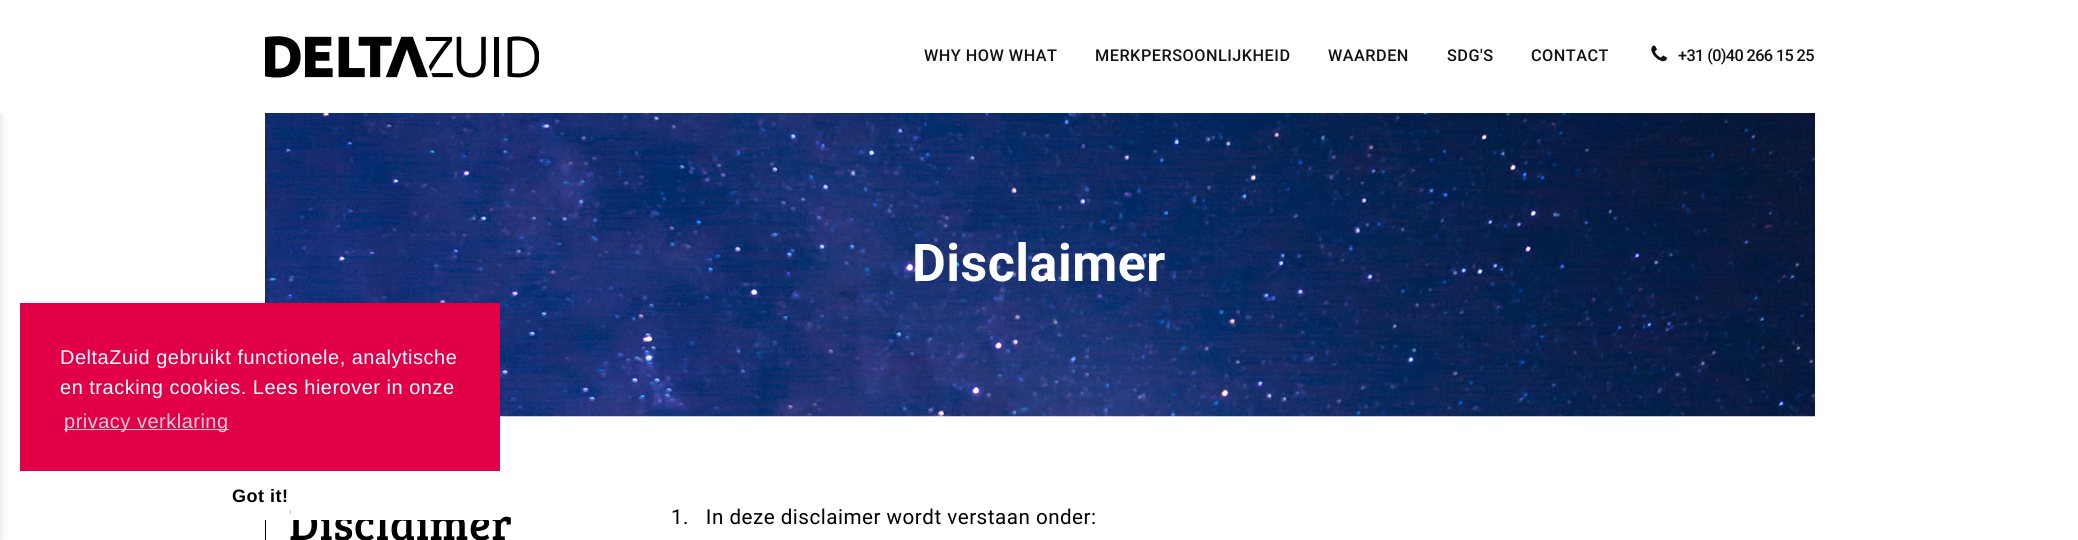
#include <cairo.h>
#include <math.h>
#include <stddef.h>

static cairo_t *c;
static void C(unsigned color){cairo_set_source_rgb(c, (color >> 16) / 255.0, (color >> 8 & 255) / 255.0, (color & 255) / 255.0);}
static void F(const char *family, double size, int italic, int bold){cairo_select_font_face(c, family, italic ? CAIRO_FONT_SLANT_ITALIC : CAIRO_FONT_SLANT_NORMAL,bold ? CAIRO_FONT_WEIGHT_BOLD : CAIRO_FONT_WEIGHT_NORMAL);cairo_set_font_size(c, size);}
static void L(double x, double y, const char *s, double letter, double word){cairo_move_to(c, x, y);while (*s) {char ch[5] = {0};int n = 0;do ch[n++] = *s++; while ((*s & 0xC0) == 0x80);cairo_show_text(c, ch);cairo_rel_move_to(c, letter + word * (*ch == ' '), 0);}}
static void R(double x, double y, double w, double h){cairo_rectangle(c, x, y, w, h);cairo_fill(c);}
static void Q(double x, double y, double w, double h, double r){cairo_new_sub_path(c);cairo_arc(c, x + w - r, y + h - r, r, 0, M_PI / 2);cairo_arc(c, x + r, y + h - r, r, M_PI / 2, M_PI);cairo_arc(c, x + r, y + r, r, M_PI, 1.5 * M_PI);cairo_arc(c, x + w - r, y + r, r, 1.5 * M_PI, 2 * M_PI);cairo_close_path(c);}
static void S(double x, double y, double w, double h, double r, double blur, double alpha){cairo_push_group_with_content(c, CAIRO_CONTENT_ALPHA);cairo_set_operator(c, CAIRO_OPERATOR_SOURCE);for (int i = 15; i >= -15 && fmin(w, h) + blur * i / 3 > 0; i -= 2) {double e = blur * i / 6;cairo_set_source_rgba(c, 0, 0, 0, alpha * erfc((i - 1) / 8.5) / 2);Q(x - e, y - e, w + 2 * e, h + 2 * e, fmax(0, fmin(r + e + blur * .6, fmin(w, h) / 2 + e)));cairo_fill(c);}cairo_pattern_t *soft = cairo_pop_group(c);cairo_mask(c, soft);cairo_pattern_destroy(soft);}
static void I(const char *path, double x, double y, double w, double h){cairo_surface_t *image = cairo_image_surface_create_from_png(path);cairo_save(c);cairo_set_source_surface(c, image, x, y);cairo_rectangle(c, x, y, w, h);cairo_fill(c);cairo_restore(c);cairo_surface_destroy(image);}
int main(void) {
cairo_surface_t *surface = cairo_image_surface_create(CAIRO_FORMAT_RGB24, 2078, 540);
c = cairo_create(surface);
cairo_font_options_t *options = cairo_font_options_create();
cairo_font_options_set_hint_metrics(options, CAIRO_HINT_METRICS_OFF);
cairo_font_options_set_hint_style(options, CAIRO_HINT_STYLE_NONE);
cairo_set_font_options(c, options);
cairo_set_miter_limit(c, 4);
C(0xffffff);
cairo_paint(c);
I("3.png",265,113,1550,304);
C(0xe10048);
R(20,303,480,168);
F("Liberation Sans",20,0,0);
C(0xffffff);
L(60,364,"DeltaZuid gebruikt functionele, analytische",.5,0);
L(60,394,"en tracking cookies. Lees hierover in onze",.5,0);
C(0xf9ccda);
R(64,429,165,1);
L(64,428,"privacy verklaring",.5,0);
F("Bree Serif",45,0,0);
C(0x000000);
L(289,540,"Disclaimer",.5,0);
C(0xffffff);
R(291,507,209,13);
F("Liberation Sans",18,0,1);
C(0x000000);
L(232,502,"Got it!",.5,0);
C(0x000000);
S(-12,1,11,538,0,4,.2);
C(0xffffff);
R(0,0,6,113);
I("1.png",265,36,274,42);
F("Roboto Medium",16.25,0,0);
C(0x121212);
L(924,61,"WHY HOW WHAT",.5,0);
L(1095,61,"MERKPERSOONLIJKHEID",.5,0);
L(1328,61,"WAARDEN",.5,0);
L(1447,61,"SDG'S",.5,0);
L(1531,61,"CONTACT",.5,0);
I("2.png",1651,45,16,17);
L(1678,61,"+31 (0)40 266 15 25",-.6,0);
F("Roboto",52,0,1);
C(0xffffff);
L(912,281,"Disclaimer",.5,0);
C(0x000000);
R(265,520,1,20);
F("Roboto",20.6,0,0);
L(671,524,"1.   In deze disclaimer wordt verstaan onder:",.5,0);
cairo_surface_write_to_png(surface, "o.png");
cairo_font_options_destroy(options);
cairo_destroy(c);
cairo_surface_destroy(surface);
return 0;
}
